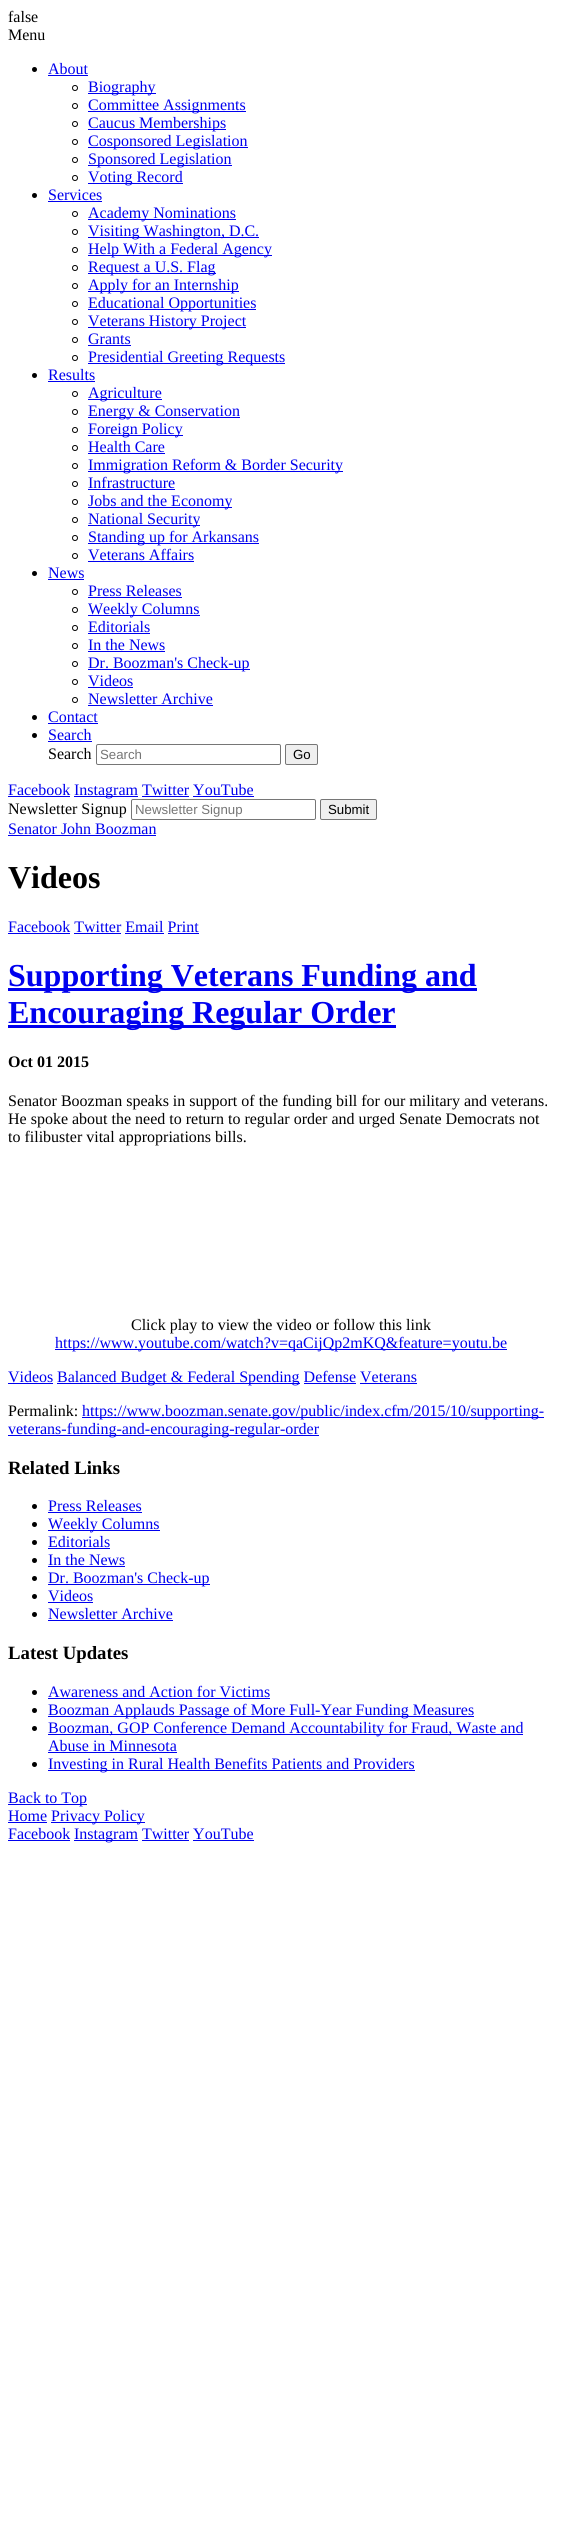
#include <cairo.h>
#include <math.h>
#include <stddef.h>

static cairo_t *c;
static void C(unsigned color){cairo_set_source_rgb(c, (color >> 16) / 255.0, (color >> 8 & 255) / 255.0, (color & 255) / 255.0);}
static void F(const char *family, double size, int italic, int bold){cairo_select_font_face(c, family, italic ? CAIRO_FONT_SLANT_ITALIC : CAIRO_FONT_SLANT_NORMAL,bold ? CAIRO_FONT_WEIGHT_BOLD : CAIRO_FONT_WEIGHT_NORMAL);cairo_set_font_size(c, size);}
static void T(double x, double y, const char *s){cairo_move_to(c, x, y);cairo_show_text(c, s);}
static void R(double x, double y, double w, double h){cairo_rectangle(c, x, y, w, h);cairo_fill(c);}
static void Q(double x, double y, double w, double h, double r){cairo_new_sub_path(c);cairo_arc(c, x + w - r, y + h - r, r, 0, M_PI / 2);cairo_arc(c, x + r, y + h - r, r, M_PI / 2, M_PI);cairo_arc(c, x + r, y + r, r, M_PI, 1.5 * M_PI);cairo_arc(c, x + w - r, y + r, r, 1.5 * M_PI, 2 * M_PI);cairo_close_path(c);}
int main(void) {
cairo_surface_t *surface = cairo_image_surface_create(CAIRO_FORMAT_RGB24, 562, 2546);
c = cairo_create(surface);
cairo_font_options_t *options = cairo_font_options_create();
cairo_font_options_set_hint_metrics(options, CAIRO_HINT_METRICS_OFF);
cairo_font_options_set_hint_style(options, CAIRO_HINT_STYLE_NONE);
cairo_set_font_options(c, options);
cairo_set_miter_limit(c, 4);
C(0xffffff);
cairo_paint(c);
F("Liberation Serif",16,0,0);
C(0x000000);
T(8,22,"false");
T(8,40,"Menu");
cairo_new_path(c);
cairo_arc(c,34.5,69.5,2.5,0,2 * M_PI);
cairo_fill(c);
C(0x0000ee);
T(48,74,"About");
R(48,75,40,1);
cairo_new_path(c);
cairo_arc(c,75,88,2.5,0,2 * M_PI);
C(0x000000);
cairo_set_line_width(c,1);
cairo_stroke(c);
C(0x0000ee);
R(88,93,68,1);
T(88,92,"Biography");
cairo_new_path(c);
cairo_arc(c,75,106,2.5,0,2 * M_PI);
C(0x000000);
cairo_stroke(c);
C(0x0000ee);
R(88,111,158,1);
T(88,110,"Committee Assignments");
cairo_new_path(c);
cairo_arc(c,75,124,2.5,0,2 * M_PI);
C(0x000000);
cairo_stroke(c);
C(0x0000ee);
R(88,129,138,1);
T(88,128,"Caucus Memberships");
cairo_new_path(c);
cairo_arc(c,75,142,2.5,0,2 * M_PI);
C(0x000000);
cairo_stroke(c);
C(0x0000ee);
R(88,147,160,1);
T(88,146,"Cosponsored Legislation");
cairo_new_path(c);
cairo_arc(c,75,160,2.5,0,2 * M_PI);
C(0x000000);
cairo_stroke(c);
C(0x0000ee);
R(88,165,144,1);
T(88,164,"Sponsored Legislation");
cairo_new_path(c);
cairo_arc(c,75,178,2.5,0,2 * M_PI);
C(0x000000);
cairo_stroke(c);
C(0x0000ee);
R(88,183,95,1);
T(88,182,"Voting Record");
C(0x000000);
cairo_new_path(c);
cairo_arc(c,34.5,195.5,2.5,0,2 * M_PI);
cairo_fill(c);
C(0x0000ee);
T(48,200,"Services");
R(48,201,54,1);
cairo_new_path(c);
cairo_arc(c,75,214,2.5,0,2 * M_PI);
C(0x000000);
cairo_stroke(c);
C(0x0000ee);
R(88,219,148,1);
T(88,218,"Academy Nominations");
cairo_new_path(c);
cairo_arc(c,75,232,2.5,0,2 * M_PI);
C(0x000000);
cairo_stroke(c);
C(0x0000ee);
R(88,237,171,1);
T(88,236,"Visiting Washington, D.C.");
cairo_new_path(c);
cairo_arc(c,75,250,2.5,0,2 * M_PI);
C(0x000000);
cairo_stroke(c);
C(0x0000ee);
R(88,255,184,1);
T(88,254,"Help With a Federal Agency");
cairo_new_path(c);
cairo_arc(c,75,268,2.5,0,2 * M_PI);
C(0x000000);
cairo_stroke(c);
C(0x0000ee);
R(88,273,128,1);
T(88,272,"Request a U.S. Flag");
cairo_new_path(c);
cairo_arc(c,75,286,2.5,0,2 * M_PI);
C(0x000000);
cairo_stroke(c);
C(0x0000ee);
R(88,291,151,1);
T(88,290,"Apply for an Internship");
cairo_new_path(c);
cairo_arc(c,75,304,2.5,0,2 * M_PI);
C(0x000000);
cairo_stroke(c);
C(0x0000ee);
R(88,309,168,1);
T(88,308,"Educational Opportunities");
cairo_new_path(c);
cairo_arc(c,75,322,2.5,0,2 * M_PI);
C(0x000000);
cairo_stroke(c);
C(0x0000ee);
R(88,327,158,1);
T(88,326,"Veterans History Project");
cairo_new_path(c);
cairo_arc(c,75,340,2.5,0,2 * M_PI);
C(0x000000);
cairo_stroke(c);
C(0x0000ee);
T(88,344,"Grants");
R(88,345,43,1);
cairo_new_path(c);
cairo_arc(c,75,358,2.5,0,2 * M_PI);
C(0x000000);
cairo_stroke(c);
C(0x0000ee);
R(88,363,197,1);
T(88,362,"Presidential Greeting Requests");
C(0x000000);
cairo_new_path(c);
cairo_arc(c,34.5,375.5,2.5,0,2 * M_PI);
cairo_fill(c);
C(0x0000ee);
T(48,380,"Results");
R(48,381,47,1);
cairo_new_path(c);
cairo_arc(c,75,394,2.5,0,2 * M_PI);
C(0x000000);
cairo_stroke(c);
C(0x0000ee);
R(88,399,74,1);
T(88,398,"Agriculture");
cairo_new_path(c);
cairo_arc(c,75,412,2.5,0,2 * M_PI);
C(0x000000);
cairo_stroke(c);
C(0x0000ee);
R(88,417,152,1);
T(88,416,"Energy & Conservation");
cairo_new_path(c);
cairo_arc(c,75,430,2.5,0,2 * M_PI);
C(0x000000);
cairo_stroke(c);
C(0x0000ee);
R(88,435,95,1);
T(88,434,"Foreign Policy");
cairo_new_path(c);
cairo_arc(c,75,448,2.5,0,2 * M_PI);
C(0x000000);
cairo_stroke(c);
C(0x0000ee);
T(88,452,"Health Care");
R(88,453,77,1);
cairo_new_path(c);
cairo_arc(c,75,466,2.5,0,2 * M_PI);
C(0x000000);
cairo_stroke(c);
C(0x0000ee);
R(88,471,255,1);
T(88,470,"Immigration Reform & Border Security");
cairo_new_path(c);
cairo_arc(c,75,484,2.5,0,2 * M_PI);
C(0x000000);
cairo_stroke(c);
C(0x0000ee);
T(88,488,"Infrastructure");
R(88,489,87,1);
cairo_new_path(c);
cairo_arc(c,75,502,2.5,0,2 * M_PI);
C(0x000000);
cairo_stroke(c);
C(0x0000ee);
R(88,507,144,1);
T(88,506,"Jobs and the Economy");
cairo_new_path(c);
cairo_arc(c,75,520,2.5,0,2 * M_PI);
C(0x000000);
cairo_stroke(c);
C(0x0000ee);
R(88,525,112,1);
T(88,524,"National Security");
cairo_new_path(c);
cairo_arc(c,75,538,2.5,0,2 * M_PI);
C(0x000000);
cairo_stroke(c);
C(0x0000ee);
R(88,543,171,1);
T(88,542,"Standing up for Arkansans");
cairo_new_path(c);
cairo_arc(c,75,556,2.5,0,2 * M_PI);
C(0x000000);
cairo_stroke(c);
C(0x0000ee);
T(88,560,"Veterans Affairs");
R(88,561,106,1);
C(0x000000);
cairo_new_path(c);
cairo_arc(c,34.5,573.5,2.5,0,2 * M_PI);
cairo_fill(c);
C(0x0000ee);
T(48,578,"News");
R(48,579,36,1);
cairo_new_path(c);
cairo_arc(c,75,592,2.5,0,2 * M_PI);
C(0x000000);
cairo_stroke(c);
C(0x0000ee);
T(88,596,"Press Releases");
R(88,597,94,1);
cairo_new_path(c);
cairo_arc(c,75,610,2.5,0,2 * M_PI);
C(0x000000);
cairo_stroke(c);
C(0x0000ee);
R(88,615,112,1);
T(88,614,"Weekly Columns");
cairo_new_path(c);
cairo_arc(c,75,628,2.5,0,2 * M_PI);
C(0x000000);
cairo_stroke(c);
C(0x0000ee);
T(88,632,"Editorials");
R(88,633,62,1);
cairo_new_path(c);
cairo_arc(c,75,646,2.5,0,2 * M_PI);
C(0x000000);
cairo_stroke(c);
C(0x0000ee);
T(88,650,"In the News");
R(88,651,77,1);
cairo_new_path(c);
cairo_arc(c,75,664,2.5,0,2 * M_PI);
C(0x000000);
cairo_stroke(c);
C(0x0000ee);
R(88,669,162,1);
T(88,668,"Dr. Boozman's Check-up");
cairo_new_path(c);
cairo_arc(c,75,682,2.5,0,2 * M_PI);
C(0x000000);
cairo_stroke(c);
C(0x0000ee);
T(88,686,"Videos");
R(88,687,45,1);
cairo_new_path(c);
cairo_arc(c,75,700,2.5,0,2 * M_PI);
C(0x000000);
cairo_stroke(c);
C(0x0000ee);
T(88,704,"Newsletter Archive");
R(88,705,125,1);
C(0x000000);
cairo_new_path(c);
cairo_arc(c,34.5,717.5,2.5,0,2 * M_PI);
cairo_fill(c);
C(0x0000ee);
T(48,722,"Contact");
R(48,723,50,1);
C(0x000000);
cairo_new_path(c);
cairo_arc(c,34.5,735.5,2.5,0,2 * M_PI);
cairo_fill(c);
C(0x0000ee);
T(48,740,"Search");
R(48,741,44,1);
C(0x000000);
T(48,759,"Search");
Q(96.5,744.5,184,20,1.5);
C(0x767676);
cairo_stroke(c);
F("Liberation Sans",13.25,0,0);
C(0x757575);
T(100,759,"Search");
C(0xefefef);
Q(285.5,744.5,32,20,1.5);
cairo_fill_preserve(c);
C(0x767676);
cairo_stroke(c);
C(0x000000);
T(293,759,"Go");
F("Liberation Serif",16,0,0);
C(0x0000ee);
T(8,795,"Facebook");
R(8,796,62,1);
R(74,796,64,1);
T(74,795,"Instagram Twitter YouTube");
R(142,796,47,1);
R(193,796,61,1);
C(0x000000);
T(8,814,"Newsletter Signup");
Q(131.5,799.5,184,20,1.5);
C(0x767676);
cairo_stroke(c);
F("Liberation Sans",13.25,0,0);
C(0x757575);
T(135,814,"Newsletter Signup");
C(0xefefef);
Q(320.5,799.5,56,20,1.5);
cairo_fill_preserve(c);
C(0x767676);
cairo_stroke(c);
C(0x000000);
T(328,814,"Submit");
F("Liberation Serif",16,0,0);
C(0x0000ee);
T(8,834,"Senator John Boozman");
R(8,835,148,1);
F("Liberation Serif",32,0,1);
C(0x000000);
T(8,888,"Videos");
F("Liberation Serif",16,0,0);
C(0x0000ee);
T(8,932,"Facebook Twitter Email Print");
R(8,933,62,1);
R(74,933,47,1);
R(125,933,39,1);
R(168,933,31,1);
R(8,988,469,3);
F("Liberation Serif",32,0,1);
T(8,986,"Supporting Veterans Funding and");
R(8,1025,388,3);
T(8,1023,"Encouraging Regular Order");
F("Liberation Serif",16,0,1);
C(0x000000);
T(8,1067,"Oct 01 2015");
F("Liberation Serif",16,0,0);
T(8,1106,"Senator Boozman speaks in support of the funding bill for our military and veterans.");
T(8,1124,"He spoke about the need to return to regular order and urged Senate Democrats not");
T(8,1142,"to filibuster vital appropriations bills.");
T(131,1330,"Click play to view the video or follow this link");
C(0x0000ee);
R(55,1349,452,1);
T(55,1348,"https://www.youtube.com/watch?v=qaCijQp2mKQ&feature=youtu.be");
T(8,1382,"Videos");
R(8,1383,45,1);
R(57,1383,243,1);
T(57,1382,"Balanced Budget & Federal Spending Defense Veterans");
R(304,1383,52,1);
R(360,1383,57,1);
C(0x000000);
T(8,1416,"Permalink:");
C(0x0000ee);
R(82,1417,462,1);
T(82,1416,"https://www.boozman.senate.gov/public/index.cfm/2015/10/supporting-");
R(8,1435,311,1);
T(8,1434,"veterans-funding-and-encouraging-regular-order");
F("Liberation Serif",18.75,0,1);
C(0x000000);
T(8,1474,"Related Links");
cairo_new_path(c);
cairo_arc(c,34.5,1506.5,2.5,0,2 * M_PI);
cairo_fill(c);
F("Liberation Serif",16,0,0);
C(0x0000ee);
T(48,1511,"Press Releases");
R(48,1512,94,1);
C(0x000000);
cairo_new_path(c);
cairo_arc(c,34.5,1524.5,2.5,0,2 * M_PI);
cairo_fill(c);
C(0x0000ee);
R(48,1530,112,1);
T(48,1529,"Weekly Columns");
C(0x000000);
cairo_new_path(c);
cairo_arc(c,34.5,1542.5,2.5,0,2 * M_PI);
cairo_fill(c);
C(0x0000ee);
T(48,1547,"Editorials");
R(48,1548,62,1);
C(0x000000);
cairo_new_path(c);
cairo_arc(c,34.5,1560.5,2.5,0,2 * M_PI);
cairo_fill(c);
C(0x0000ee);
T(48,1565,"In the News");
R(48,1566,77,1);
C(0x000000);
cairo_new_path(c);
cairo_arc(c,34.5,1578.5,2.5,0,2 * M_PI);
cairo_fill(c);
C(0x0000ee);
R(48,1584,162,1);
T(48,1583,"Dr. Boozman's Check-up");
C(0x000000);
cairo_new_path(c);
cairo_arc(c,34.5,1596.5,2.5,0,2 * M_PI);
cairo_fill(c);
C(0x0000ee);
T(48,1601,"Videos");
R(48,1602,45,1);
C(0x000000);
cairo_new_path(c);
cairo_arc(c,34.5,1614.5,2.5,0,2 * M_PI);
cairo_fill(c);
C(0x0000ee);
T(48,1619,"Newsletter Archive");
R(48,1620,125,1);
F("Liberation Serif",18.75,0,1);
C(0x000000);
T(8,1659,"Latest Updates");
cairo_new_path(c);
cairo_arc(c,34.5,1692.5,2.5,0,2 * M_PI);
cairo_fill(c);
F("Liberation Serif",16,0,0);
C(0x0000ee);
T(48,1697,"Awareness and Action for Victims");
R(48,1698,222,1);
C(0x000000);
cairo_new_path(c);
cairo_arc(c,34.5,1710.5,2.5,0,2 * M_PI);
cairo_fill(c);
C(0x0000ee);
R(48,1716,426,1);
T(48,1715,"Boozman Applauds Passage of More Full-Year Funding Measures");
C(0x000000);
cairo_new_path(c);
cairo_arc(c,34.5,1728.5,2.5,0,2 * M_PI);
cairo_fill(c);
C(0x0000ee);
R(48,1734,475,1);
T(48,1733,"Boozman, GOP Conference Demand Accountability for Fraud, Waste and");
T(48,1751,"Abuse in Minnesota");
R(48,1752,129,1);
C(0x000000);
cairo_new_path(c);
cairo_arc(c,34.5,1764.5,2.5,0,2 * M_PI);
cairo_fill(c);
C(0x0000ee);
R(48,1770,367,1);
T(48,1769,"Investing in Rural Health Benefits Patients and Providers");
R(8,1804,79,1);
T(8,1803,"Back to Top");
T(8,1821,"Home");
R(8,1822,39,1);
R(51,1822,94,1);
T(51,1821,"Privacy Policy");
T(8,1839,"Facebook");
R(8,1840,62,1);
R(74,1840,64,1);
T(74,1839,"Instagram Twitter YouTube");
R(142,1840,47,1);
R(193,1840,61,1);
cairo_surface_write_to_png(surface, "o.png");
cairo_font_options_destroy(options);
cairo_destroy(c);
cairo_surface_destroy(surface);
return 0;
}
